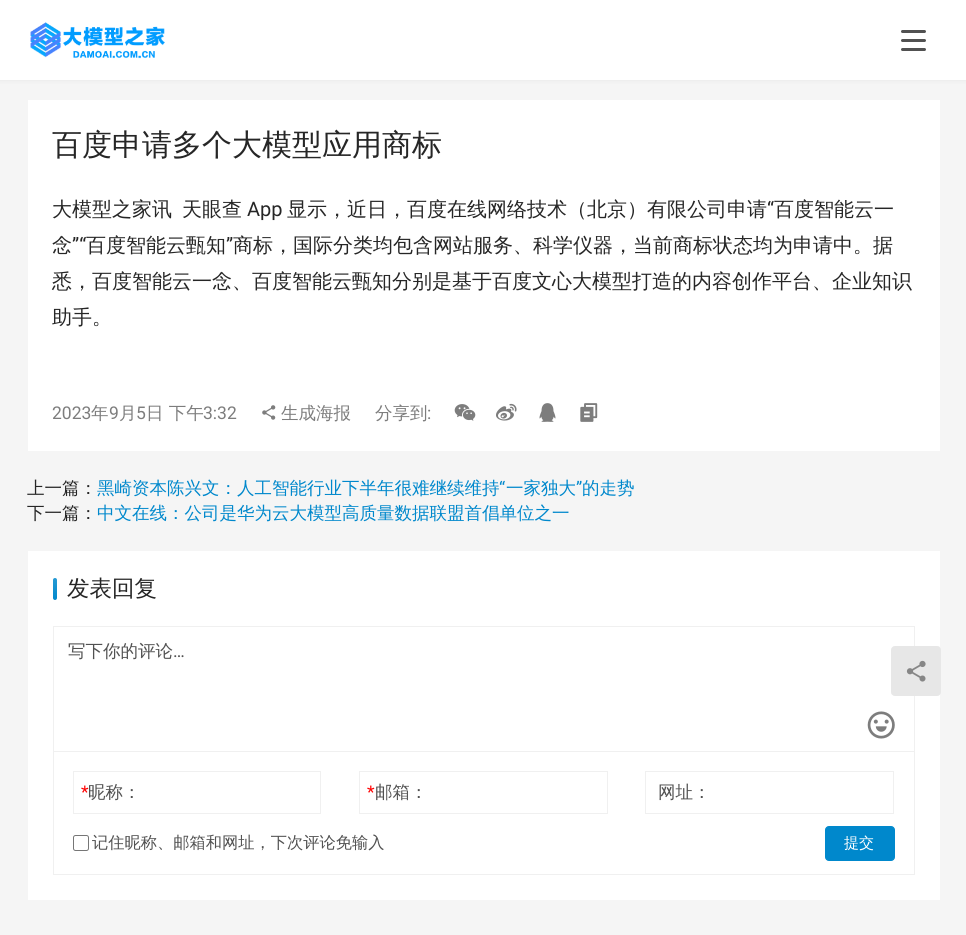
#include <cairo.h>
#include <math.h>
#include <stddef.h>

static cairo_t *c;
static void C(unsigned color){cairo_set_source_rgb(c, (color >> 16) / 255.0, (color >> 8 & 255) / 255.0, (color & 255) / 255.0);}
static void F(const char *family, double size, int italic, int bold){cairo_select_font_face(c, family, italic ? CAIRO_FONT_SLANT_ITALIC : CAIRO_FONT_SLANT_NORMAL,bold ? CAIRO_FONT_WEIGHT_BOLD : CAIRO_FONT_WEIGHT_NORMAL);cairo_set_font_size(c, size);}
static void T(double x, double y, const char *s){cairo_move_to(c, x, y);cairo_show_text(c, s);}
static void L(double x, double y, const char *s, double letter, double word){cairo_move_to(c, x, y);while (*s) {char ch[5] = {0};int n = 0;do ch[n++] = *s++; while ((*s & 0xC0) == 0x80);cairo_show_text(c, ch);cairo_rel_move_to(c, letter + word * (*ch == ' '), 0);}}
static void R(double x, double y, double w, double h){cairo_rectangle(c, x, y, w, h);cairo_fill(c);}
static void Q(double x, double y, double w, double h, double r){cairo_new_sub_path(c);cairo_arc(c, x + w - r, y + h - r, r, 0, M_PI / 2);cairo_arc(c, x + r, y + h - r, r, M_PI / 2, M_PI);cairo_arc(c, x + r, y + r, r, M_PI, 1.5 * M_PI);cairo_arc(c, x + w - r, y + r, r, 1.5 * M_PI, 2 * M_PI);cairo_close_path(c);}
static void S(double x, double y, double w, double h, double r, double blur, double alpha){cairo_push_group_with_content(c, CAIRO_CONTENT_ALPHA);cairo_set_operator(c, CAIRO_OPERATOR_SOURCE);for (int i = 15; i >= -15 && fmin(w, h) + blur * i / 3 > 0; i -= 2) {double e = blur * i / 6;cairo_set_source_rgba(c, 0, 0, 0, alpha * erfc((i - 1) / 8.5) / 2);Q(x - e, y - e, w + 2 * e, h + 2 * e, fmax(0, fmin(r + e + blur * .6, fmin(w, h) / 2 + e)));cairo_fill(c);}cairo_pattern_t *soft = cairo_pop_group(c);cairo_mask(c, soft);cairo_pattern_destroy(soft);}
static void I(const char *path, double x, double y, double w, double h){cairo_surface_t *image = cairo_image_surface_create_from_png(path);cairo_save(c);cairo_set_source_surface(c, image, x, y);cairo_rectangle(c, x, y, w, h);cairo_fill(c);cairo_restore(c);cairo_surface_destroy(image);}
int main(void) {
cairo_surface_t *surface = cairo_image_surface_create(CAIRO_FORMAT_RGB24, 966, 935);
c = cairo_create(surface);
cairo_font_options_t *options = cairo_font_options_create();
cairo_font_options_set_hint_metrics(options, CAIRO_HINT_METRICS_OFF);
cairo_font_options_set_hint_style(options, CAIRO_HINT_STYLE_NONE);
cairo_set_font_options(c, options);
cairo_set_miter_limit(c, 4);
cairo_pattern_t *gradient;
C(0xf5f5f5);
cairo_paint(c);
C(0x262626);
S(-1,-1,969,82,0,2,.06);
C(0xffffff);
R(0,0,966,80);
I("1.png",30,22,135,37);
C(0x515151);
Q(901,30,25,3,1.5);
cairo_fill(c);
Q(901,39,25,3,1.5);
cairo_fill(c);
Q(901,48,25,3,1.5);
cairo_fill(c);
C(0xffffff);
R(28,100,912,351);
F("WenQuanYi Zen Hei Medium",30,0,0);
C(0x262626);
T(52,155,"百度申请多个大模型应用商标");
F("WenQuanYi Zen Hei Medium",20,0,0);
L(52,216,"大模型之家讯  天眼查",0,-1);
F("Roboto",20,0,0);
T(247,216,"App");
F("WenQuanYi Zen Hei Medium",20,0,0);
T(287,216,"显示，近日，百度在线网络技术（北京）有限公司申请");
F("Roboto",20,0,0);
T(767,216,"“");
F("WenQuanYi Zen Hei Medium",20,0,0);
T(774,216,"百度智能云一");
T(52,252,"念");
F("Roboto",20,0,0);
T(72,252,"”“");
F("WenQuanYi Zen Hei Medium",20,0,0);
T(86,252,"百度智能云甄知");
F("Roboto",20,0,0);
T(226,252,"”");
F("WenQuanYi Zen Hei Medium",20,0,0);
T(233,252,"商标，国际分类均包含网站服务、科学仪器，当前商标状态均为申请中。据");
T(52,288,"悉，百度智能云一念、百度智能云甄知分别是基于百度文心大模型打造的内容创作平台、企业知识");
T(52,324,"助手。");
F("Roboto",17.5,0,0);
C(0x7d7d7d);
T(52,419,"2023");
F("WenQuanYi Zen Hei Medium",17.5,0,0);
T(91,419,"年");
F("Roboto",17.5,0,0);
T(109,419,"9");
F("WenQuanYi Zen Hei Medium",17.5,0,0);
T(119,419,"月");
F("Roboto",17.5,0,0);
T(136,419,"5");
F("WenQuanYi Zen Hei Medium",17.5,0,0);
T(146,419,"日 下午");
F("Roboto",17.5,0,0);
T(203,419,"3:32");
I("2.png",262,405,14,15);
F("WenQuanYi Zen Hei Medium",17.5,0,0);
T(281,419,"生成海报");
T(375,419,"分享到");
F("Roboto",17.5,0,0);
T(427,419,":");
I("3.png",454,404,22,17);
I("4.png",496,403,21,18);
I("5.png",539,403,17,19);
I("6.png",580,403,18,19);
F("WenQuanYi Zen Hei Medium",17.5,0,0);
C(0x262626);
T(27,494,"上一篇：");
C(0x0088cc);
T(97,494,"黑崎资本陈兴文：人工智能行业下半年很难继续维持");
F("Roboto",17.5,0,0);
T(499,494,"“");
F("WenQuanYi Zen Hei Medium",17.5,0,0);
T(506,494,"一家独大");
F("Roboto",17.5,0,0);
T(576,494,"”");
F("WenQuanYi Zen Hei Medium",17.5,0,0);
T(582,494,"的走势");
C(0x262626);
T(27,519,"下一篇：");
C(0x0088cc);
T(97,519,"中文在线：公司是华为云大模型高质量数据联盟首倡单位之一");
C(0xffffff);
R(28,551,912,349);
C(0x0088cc);
Q(53,578,4,22,2);
cairo_fill(c);
gradient = cairo_pattern_create_linear(54,578,54,600);
cairo_pattern_add_color_stop_rgba(gradient,0,1,1,1,.15);
cairo_pattern_add_color_stop_rgba(gradient,1,1,1,1,0);
cairo_set_source(c,gradient);
cairo_pattern_destroy(gradient);
Q(53,578,4,22,2);
cairo_fill(c);
F("WenQuanYi Zen Hei Medium",22.5,0,0);
C(0x262626);
T(67,596,"发表回复");
cairo_rectangle(c,53.5,626.5,861,248);
C(0xf0f0f0);
cairo_set_line_width(c,1);
cairo_stroke(c);
R(54,751,860,1);
F("WenQuanYi Zen Hei Medium",17.5,0,0);
C(0x515151);
T(68,657,"写下你的评论");
F("Roboto",17.5,0,0);
T(173,657,"…");
I("7.png",867,711,28,28);
cairo_rectangle(c,73.5,771.5,247,42);
C(0xf0f0f0);
cairo_stroke(c);
C(0xff0000);
T(81,798,"*");
F("WenQuanYi Zen Hei Medium",17.5,0,0);
C(0x515151);
T(88,798,"昵称：");
cairo_rectangle(c,359.5,771.5,248,42);
C(0xf0f0f0);
cairo_stroke(c);
F("Roboto",17.5,0,0);
C(0xff0000);
T(367,798,"*");
F("WenQuanYi Zen Hei Medium",17.5,0,0);
C(0x515151);
T(375,798,"邮箱：");
cairo_rectangle(c,645.5,771.5,248,42);
C(0xf0f0f0);
cairo_stroke(c);
C(0x515151);
T(658,798,"网址：");
Q(73.5,835.5,15,15,2);
C(0x767676);
cairo_stroke(c);
F("WenQuanYi Zen Hei Medium",16.25,0,0);
C(0x515151);
T(92,848,"记住昵称、邮箱和网址，下次评论免输入");
C(0x0088cc);
Q(825.5,826.5,69,34,3.5);
cairo_fill_preserve(c);
cairo_stroke(c);
F("WenQuanYi Zen Hei Medium",15,0,0);
C(0xffffff);
T(844,848,"提交");
C(0xf5f5f5);
Q(891,646,50,50,4);
cairo_fill(c);
cairo_set_source_rgba(c,0.149,0.149,0.149,0.07);
Q(891,646,50,50,4);
cairo_fill(c);
I("8.png",906,660,20,22);
cairo_surface_write_to_png(surface, "o.png");
cairo_font_options_destroy(options);
cairo_destroy(c);
cairo_surface_destroy(surface);
return 0;
}
